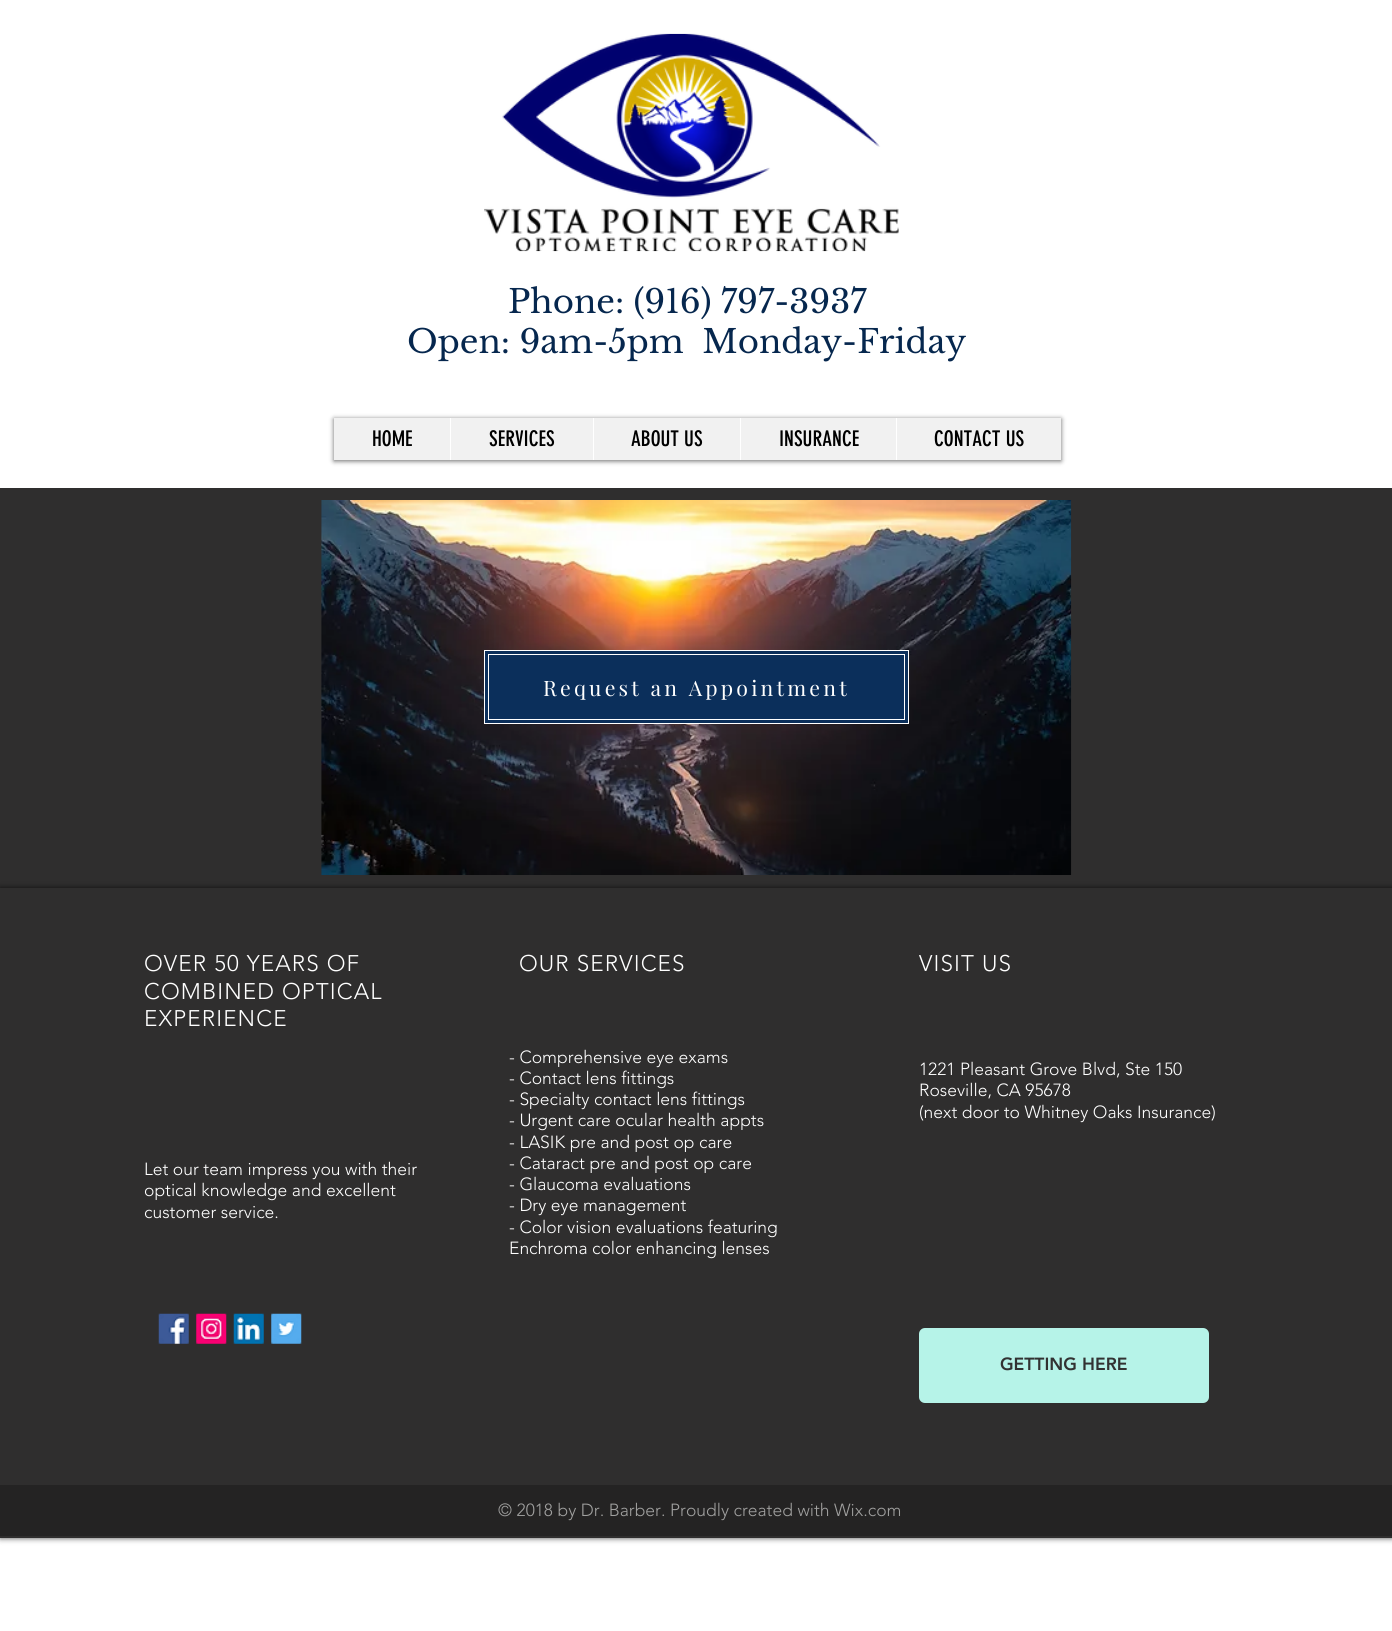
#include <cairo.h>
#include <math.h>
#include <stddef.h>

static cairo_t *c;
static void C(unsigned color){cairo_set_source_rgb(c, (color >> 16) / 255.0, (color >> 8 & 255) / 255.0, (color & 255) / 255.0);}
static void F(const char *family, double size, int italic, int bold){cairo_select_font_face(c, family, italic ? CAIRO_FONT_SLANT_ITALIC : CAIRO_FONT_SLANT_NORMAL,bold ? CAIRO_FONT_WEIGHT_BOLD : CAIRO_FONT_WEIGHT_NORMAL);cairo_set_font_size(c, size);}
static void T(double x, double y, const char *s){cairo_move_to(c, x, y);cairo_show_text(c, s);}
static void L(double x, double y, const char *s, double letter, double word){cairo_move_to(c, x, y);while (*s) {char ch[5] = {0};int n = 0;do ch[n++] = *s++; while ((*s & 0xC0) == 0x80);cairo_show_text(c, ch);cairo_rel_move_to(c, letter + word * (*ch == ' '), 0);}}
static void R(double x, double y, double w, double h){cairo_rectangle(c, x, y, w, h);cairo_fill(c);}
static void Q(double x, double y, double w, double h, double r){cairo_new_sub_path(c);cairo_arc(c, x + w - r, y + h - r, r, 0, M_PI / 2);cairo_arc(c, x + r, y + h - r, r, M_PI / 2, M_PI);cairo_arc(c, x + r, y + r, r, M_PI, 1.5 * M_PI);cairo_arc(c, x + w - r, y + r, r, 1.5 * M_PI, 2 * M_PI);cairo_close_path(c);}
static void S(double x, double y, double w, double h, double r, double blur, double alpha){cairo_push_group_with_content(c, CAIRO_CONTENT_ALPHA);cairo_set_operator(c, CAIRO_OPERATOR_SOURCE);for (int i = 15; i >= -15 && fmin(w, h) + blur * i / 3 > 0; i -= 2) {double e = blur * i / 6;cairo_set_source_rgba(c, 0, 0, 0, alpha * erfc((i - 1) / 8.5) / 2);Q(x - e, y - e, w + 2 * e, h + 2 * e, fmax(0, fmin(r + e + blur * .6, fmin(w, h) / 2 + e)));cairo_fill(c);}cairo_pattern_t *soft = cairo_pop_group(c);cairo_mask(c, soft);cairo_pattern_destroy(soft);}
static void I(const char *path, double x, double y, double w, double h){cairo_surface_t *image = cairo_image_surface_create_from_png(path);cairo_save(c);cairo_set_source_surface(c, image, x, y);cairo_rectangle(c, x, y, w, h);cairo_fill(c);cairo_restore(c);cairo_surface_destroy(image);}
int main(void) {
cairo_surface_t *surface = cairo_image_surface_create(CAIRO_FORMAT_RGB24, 1392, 1631);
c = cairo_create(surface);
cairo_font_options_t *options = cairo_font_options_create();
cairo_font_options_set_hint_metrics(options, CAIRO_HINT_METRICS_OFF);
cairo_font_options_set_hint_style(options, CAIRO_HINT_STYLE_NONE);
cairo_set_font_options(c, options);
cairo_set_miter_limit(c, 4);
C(0xffffff);
cairo_paint(c);
I("1.png",484,33,415,219);
F("Libre Baskerville",32.5,0,0);
C(0x06274e);
T(508,313,"Phone: (916) 797-3937");
T(407,353,"Open: 9am-5pm  Monday-Friday");
C(0x000000);
S(334,419,727,42,0,2.5,.6);
C(0xf1f1f1);
R(334,418,727,42);
F("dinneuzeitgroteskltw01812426",21.25,0,0);
C(0x000000);
T(372,446,"HOME");
C(0xffffff);
R(450,418,1,42);
C(0x000000);
T(489,446,"SERVICES");
C(0xffffff);
R(593,418,1,42);
C(0x000000);
T(631,446,"ABOUT US");
C(0xffffff);
R(740,418,1,42);
C(0x000000);
T(779,446,"INSURANCE");
C(0xffffff);
R(896,418,1,42);
C(0x000000);
T(934,446,"CONTACT US");
C(0x2f2e2e);
R(0,488,1392,400);
I("2.png",321,500,751,375);
C(0x0b2f5b);
cairo_rectangle(c,484.5,650.5,424,73);
cairo_fill_preserve(c);
C(0xffffff);
cairo_set_line_width(c,1);
cairo_stroke(c);
cairo_rectangle(c,488.5,654.5,416,65);
cairo_stroke(c);
F("Playfair Display",21.25,0,0);
L(543,696,"Request an Appointment",3.2,0);
C(0x000000);
S(0,888,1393,650,0,3,.7);
C(0x2f2e2e);
R(0,888,1392,650);
F("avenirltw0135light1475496 Light",22.5,0,0);
C(0xffffff);
L(144,971,"OVER 50 YEARS OF",1.1,0);
L(144,999,"COMBINED OPTICAL",1.1,0);
L(144,1026,"EXPERIENCE",1.1,0);
L(519,971,"OUR SERVICES",1.1,0);
L(919,971,"VISIT US",1.1,0);
F("avenirltw0135light1475496 Light",17.5,0,0);
T(509,1063,"- Comprehensive eye exams");
T(509,1084,"- Contact lens fittings");
T(509,1105,"- Specialty contact lens fittings");
T(509,1126,"- Urgent care ocular health appts");
T(509,1148,"- LASIK pre and post op care");
T(509,1169,"- Cataract pre and post op care");
T(509,1190,"- Glaucoma evaluations");
T(509,1211,"- Dry eye management");
T(509,1233,"- Color vision evaluations featuring");
T(509,1254,"Enchroma color enhancing lenses");
T(919,1075,"1221 Pleasant Grove Blvd, Ste 150");
T(919,1096,"Roseville, CA 95678");
T(919,1118,"(next door to Whitney Oaks Insurance)");
T(144,1175,"Let our team impress you with their");
T(144,1196,"optical knowledge and excellent");
T(144,1218,"customer service.");
I("3.png",158,1313,31,31);
I("4.png",196,1313,31,31);
I("5.png",233,1313,31,31);
I("6.png",271,1313,31,31);
C(0xb6f3e8);
Q(919,1328,290,75,6);
cairo_fill(c);
F("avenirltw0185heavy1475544 Black",17.5,0,0);
C(0x323232);
T(1000,1370,"GETTING HERE");
C(0x242323);
R(0,1485,1392,51);
F("avenirltw0135light1475496 Light",17.5,0,0);
C(0xa0a09f);
T(498,1516,"© 2018 by Dr. Barber. Proudly created with Wix.com");
cairo_surface_write_to_png(surface, "o.png");
cairo_font_options_destroy(options);
cairo_destroy(c);
cairo_surface_destroy(surface);
return 0;
}
